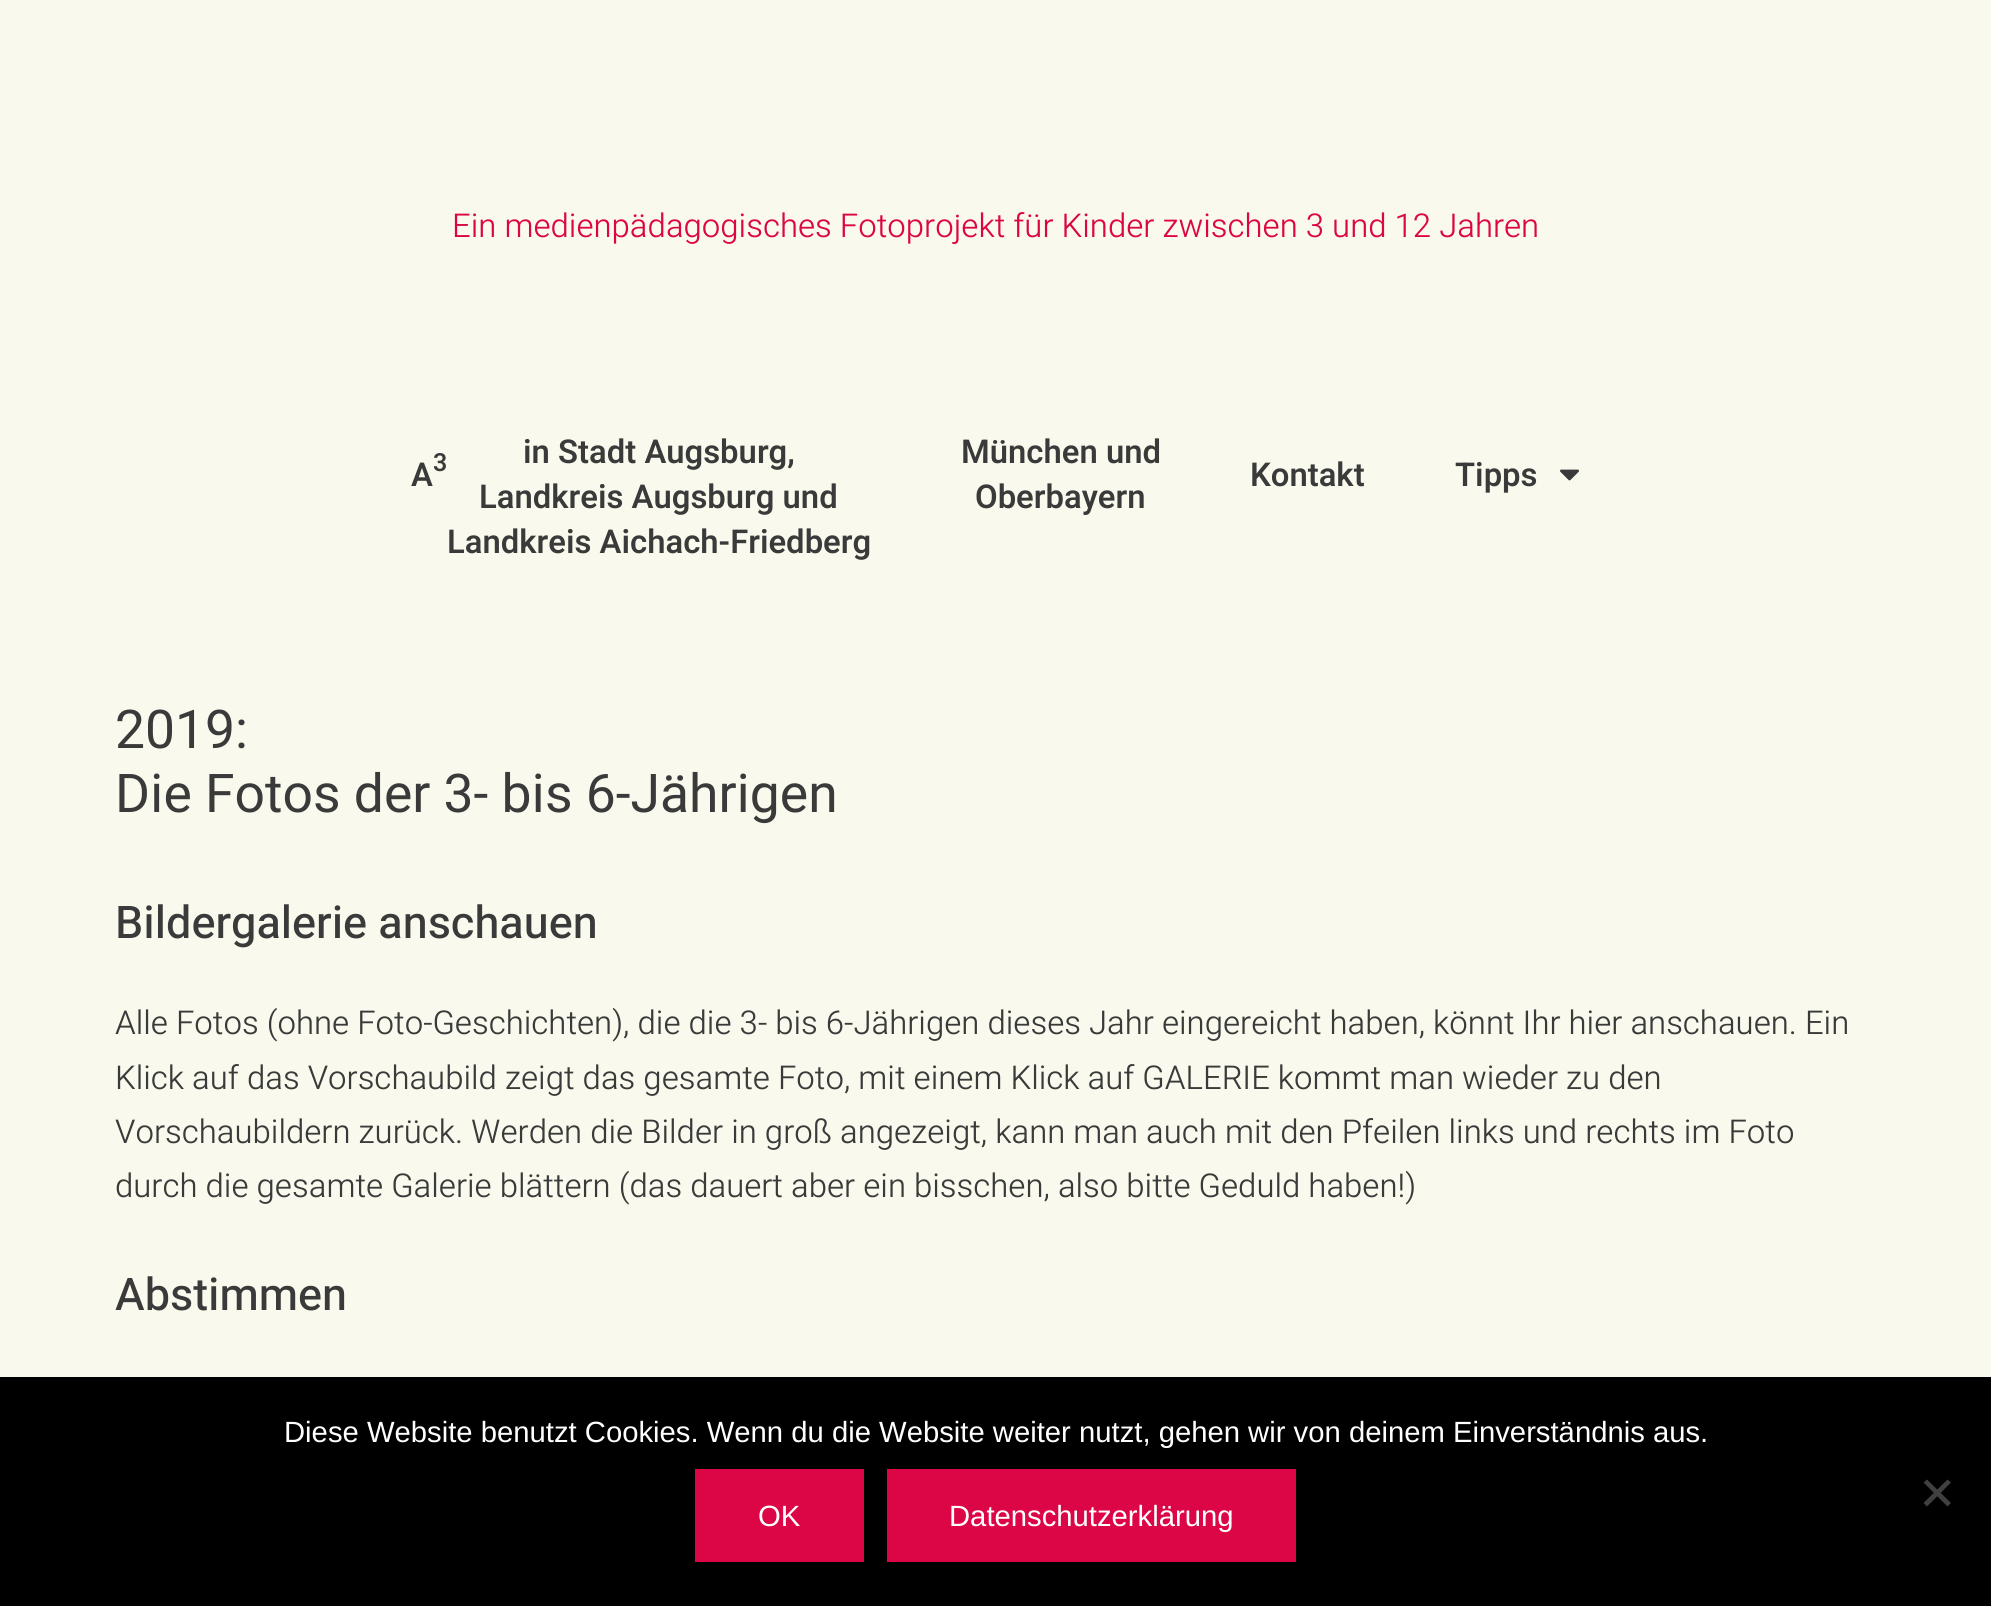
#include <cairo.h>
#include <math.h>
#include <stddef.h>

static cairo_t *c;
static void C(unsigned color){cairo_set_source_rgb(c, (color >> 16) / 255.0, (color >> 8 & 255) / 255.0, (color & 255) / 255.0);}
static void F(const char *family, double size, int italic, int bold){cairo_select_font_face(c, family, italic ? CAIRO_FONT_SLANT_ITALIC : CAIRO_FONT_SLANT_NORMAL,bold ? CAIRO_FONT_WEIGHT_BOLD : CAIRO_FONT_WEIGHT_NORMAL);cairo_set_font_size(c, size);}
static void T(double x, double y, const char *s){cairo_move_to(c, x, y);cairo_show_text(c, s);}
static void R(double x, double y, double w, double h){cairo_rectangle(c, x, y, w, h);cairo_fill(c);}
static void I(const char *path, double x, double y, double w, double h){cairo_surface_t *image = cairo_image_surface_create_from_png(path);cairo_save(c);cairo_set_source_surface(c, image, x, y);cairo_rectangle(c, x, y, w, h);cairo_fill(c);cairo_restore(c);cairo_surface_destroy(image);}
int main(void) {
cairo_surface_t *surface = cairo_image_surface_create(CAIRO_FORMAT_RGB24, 1991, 1606);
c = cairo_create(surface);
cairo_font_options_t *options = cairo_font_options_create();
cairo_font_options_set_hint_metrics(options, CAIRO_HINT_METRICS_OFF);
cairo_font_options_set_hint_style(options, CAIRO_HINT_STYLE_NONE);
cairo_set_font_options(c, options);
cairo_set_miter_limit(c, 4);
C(0xf9faed);
cairo_paint(c);
F("Heebo Light",32.83,0,0);
C(0xdc0647);
T(452,237,"Ein medienpädagogisches Fotoprojekt für Kinder zwischen 3 und 12 Jahren");
F("Heebo SemiBold",32.83,0,0);
C(0x3a3a3a);
T(411,486,"A");
F("Heebo SemiBold",25,0,0);
T(433,471,"3");
F("Heebo SemiBold",32.83,0,0);
T(523,463,"in Stadt Augsburg,");
T(479,508,"Landkreis Augsburg und");
T(447,553,"Landkreis Aichach-Friedberg");
T(961,463,"München und");
T(975,508,"Oberbayern");
T(1250,486,"Kontakt");
T(1455,486,"Tipps");
I("1.png",1560,469,19,12);
F("Heebo",53.4,0,0);
T(115,748,"2019:");
T(115,812,"Die Fotos der 3- bis 6-Jährigen");
F("Heebo Medium",45,0,0);
T(115,938,"Bildergalerie anschauen");
F("Heebo Light",32.83,0,0);
T(115,1034,"Alle Fotos (ohne Foto-Geschichten), die die 3- bis 6-Jährigen dieses Jahr eingereicht haben, könnt Ihr hier anschauen. Ein");
T(115,1089,"Klick auf das Vorschaubild zeigt das gesamte Foto, mit einem Klick auf GALERIE kommt man wieder zu den");
T(115,1143,"Vorschaubildern zurück. Werden die Bilder in groß angezeigt, kann man auch mit den Pfeilen links und rechts im Foto");
T(115,1197,"durch die gesamte Galerie blättern (das dauert aber ein bisschen, also bitte Geduld haben!)");
F("Heebo Medium",45,0,0);
T(115,1310,"Abstimmen");
C(0x000000);
R(0,1377,1991,229);
F("Liberation Sans",29.25,0,0);
C(0xffffff);
T(284,1442,"Diese Website benutzt Cookies. Wenn du die Website weiter nutzt, gehen wir von deinem Einverständnis aus.");
C(0x404040);
cairo_new_path(c);
cairo_move_to(c,1947.5,1479.5);
cairo_line_to(c,1951,1482.5);
cairo_line_to(c,1927,1506.5);
cairo_line_to(c,1923.5,1503);
cairo_close_path(c);
cairo_fill(c);
cairo_new_path(c);
cairo_move_to(c,1923.5,1482.5);
cairo_line_to(c,1927,1479.5);
cairo_line_to(c,1951,1503);
cairo_line_to(c,1947.5,1506.5);
cairo_close_path(c);
cairo_fill(c);
C(0xdc0647);
R(695,1469,169,93);
C(0xffffff);
T(758,1526,"OK");
C(0xdc0647);
R(887,1469,409,93);
C(0xffffff);
T(949,1526,"Datenschutzerklärung");
cairo_surface_write_to_png(surface, "o.png");
cairo_font_options_destroy(options);
cairo_destroy(c);
cairo_surface_destroy(surface);
return 0;
}
